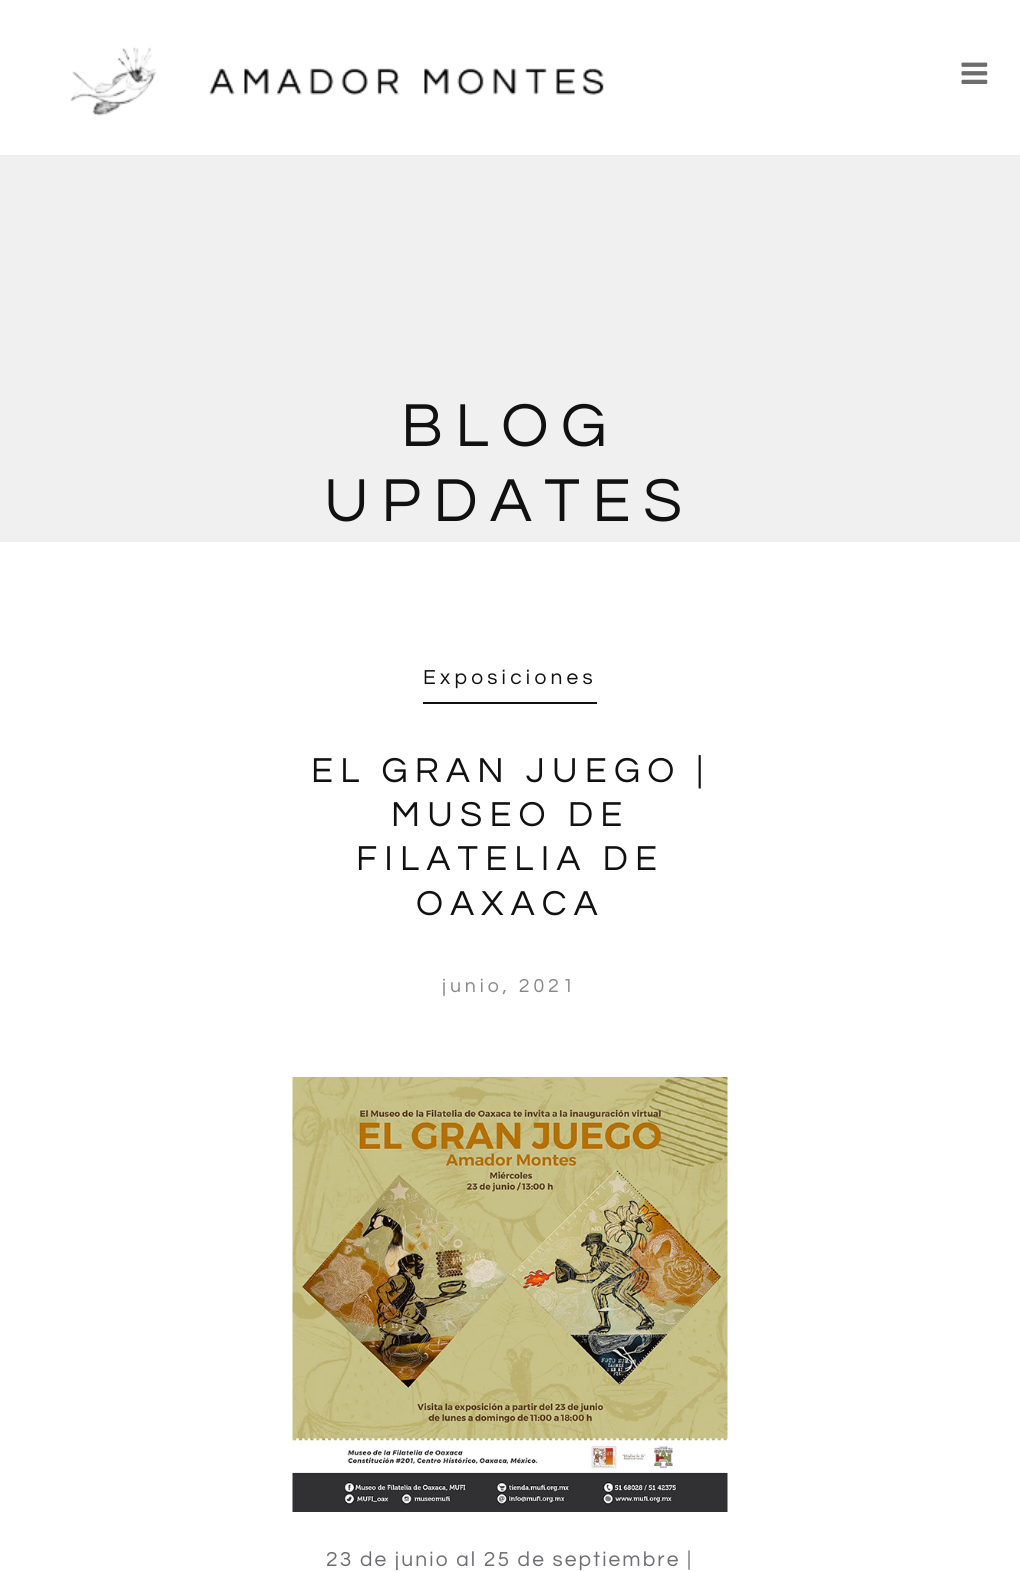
#include <cairo.h>
#include <math.h>
#include <stddef.h>

static cairo_t *c;
static void C(unsigned color){cairo_set_source_rgb(c, (color >> 16) / 255.0, (color >> 8 & 255) / 255.0, (color & 255) / 255.0);}
static void F(const char *family, double size, int italic, int bold){cairo_select_font_face(c, family, italic ? CAIRO_FONT_SLANT_ITALIC : CAIRO_FONT_SLANT_NORMAL,bold ? CAIRO_FONT_WEIGHT_BOLD : CAIRO_FONT_WEIGHT_NORMAL);cairo_set_font_size(c, size);}
static void L(double x, double y, const char *s, double letter, double word){cairo_move_to(c, x, y);while (*s) {char ch[5] = {0};int n = 0;do ch[n++] = *s++; while ((*s & 0xC0) == 0x80);cairo_show_text(c, ch);cairo_rel_move_to(c, letter + word * (*ch == ' '), 0);}}
static void R(double x, double y, double w, double h){cairo_rectangle(c, x, y, w, h);cairo_fill(c);}
static void I(const char *path, double x, double y, double w, double h){cairo_surface_t *image = cairo_image_surface_create_from_png(path);cairo_save(c);cairo_set_source_surface(c, image, x, y);cairo_rectangle(c, x, y, w, h);cairo_fill(c);cairo_restore(c);cairo_surface_destroy(image);}
int main(void) {
cairo_surface_t *surface = cairo_image_surface_create(CAIRO_FORMAT_RGB24, 1020, 1572);
c = cairo_create(surface);
cairo_font_options_t *options = cairo_font_options_create();
cairo_font_options_set_hint_metrics(options, CAIRO_HINT_METRICS_OFF);
cairo_font_options_set_hint_style(options, CAIRO_HINT_STYLE_NONE);
cairo_set_font_options(c, options);
cairo_set_miter_limit(c, 4);
C(0xffffff);
cairo_paint(c);
C(0xeeeeee);
R(0,155,1020,2);
I("1.png",70,47,534,69);
I("2.png",961,62,27,22);
C(0xf0f0f0);
R(0,157,1020,385);
F("Questrial",63,0,0);
C(0x111111);
L(401,446,"BLOG",12.5,0);
L(324,521,"UPDATES",12.5,0);
R(423,702,174,2);
F("Questrial",21,0,0);
L(423,684,"Exposiciones",4.25,0);
F("Questrial",36,0,0);
L(311,782,"EL GRAN JUEGO |",7.25,0);
L(391,826,"MUSEO DE",7.25,0);
L(356,870,"FILATELIA DE",7.25,0);
L(416,915,"OAXACA",7.25,0);
F("Questrial",19.5,0,0);
C(0x878787);
L(442,992,"junio, 2021",3.9,0);
I("3.png",292,1077,436,435);
F("Questrial",21,0,0);
C(0x6d6e71);
L(326,1566,"23 de junio al 25 de septiembre |",2.1,0);
cairo_surface_write_to_png(surface, "o.png");
cairo_font_options_destroy(options);
cairo_destroy(c);
cairo_surface_destroy(surface);
return 0;
}
